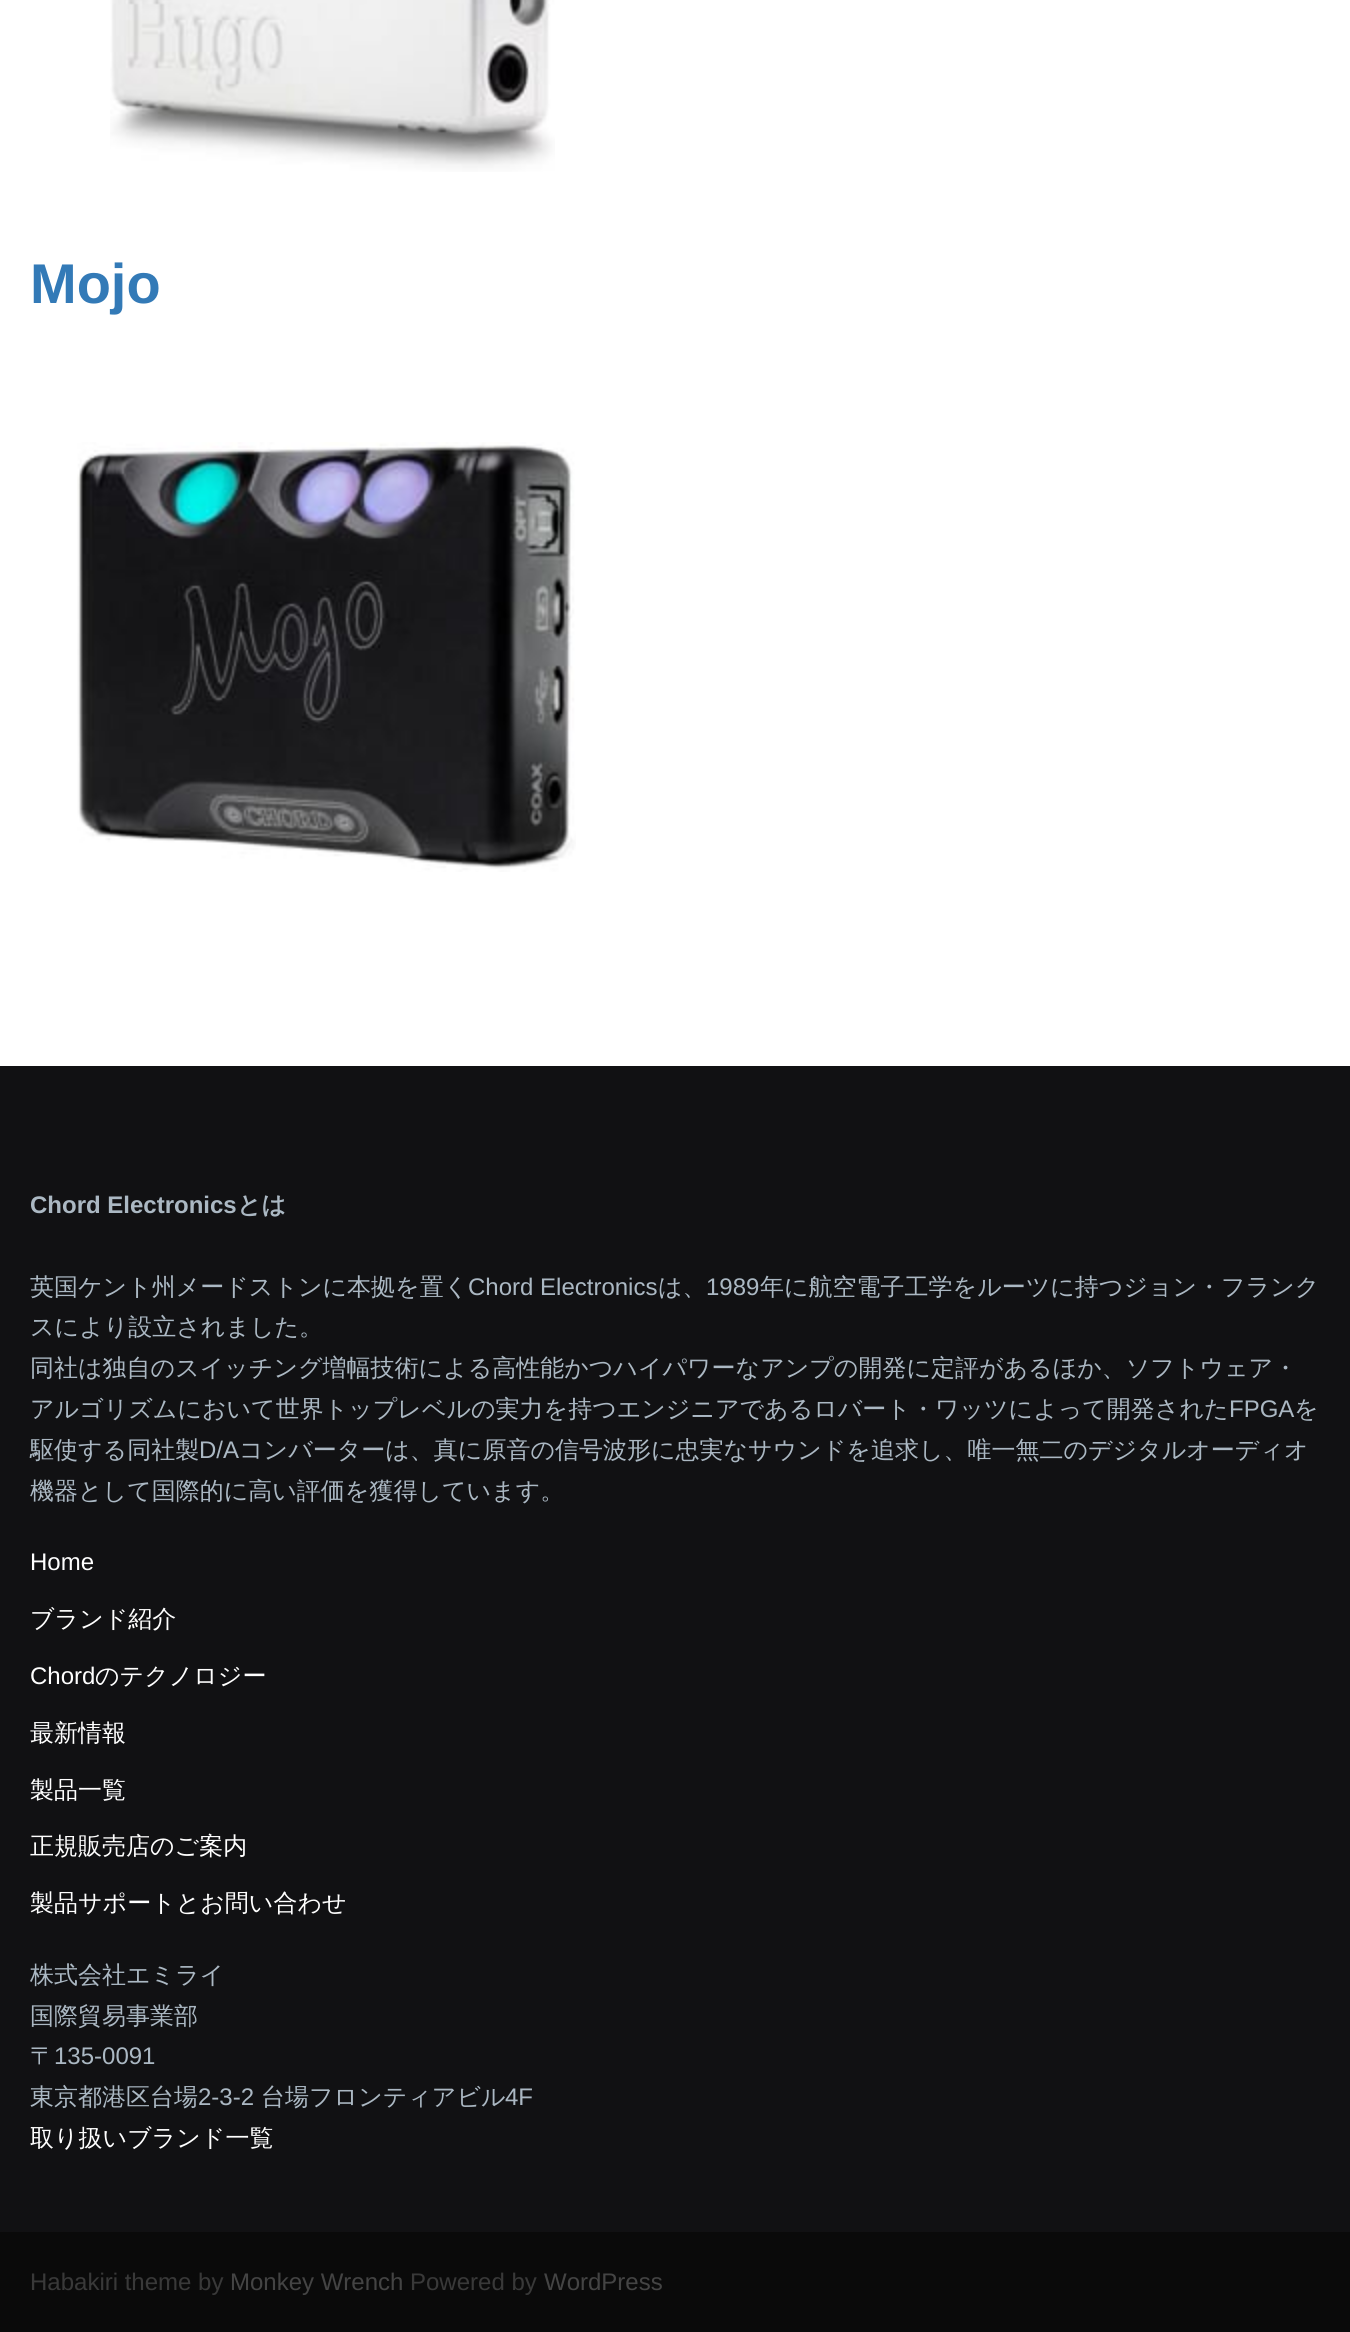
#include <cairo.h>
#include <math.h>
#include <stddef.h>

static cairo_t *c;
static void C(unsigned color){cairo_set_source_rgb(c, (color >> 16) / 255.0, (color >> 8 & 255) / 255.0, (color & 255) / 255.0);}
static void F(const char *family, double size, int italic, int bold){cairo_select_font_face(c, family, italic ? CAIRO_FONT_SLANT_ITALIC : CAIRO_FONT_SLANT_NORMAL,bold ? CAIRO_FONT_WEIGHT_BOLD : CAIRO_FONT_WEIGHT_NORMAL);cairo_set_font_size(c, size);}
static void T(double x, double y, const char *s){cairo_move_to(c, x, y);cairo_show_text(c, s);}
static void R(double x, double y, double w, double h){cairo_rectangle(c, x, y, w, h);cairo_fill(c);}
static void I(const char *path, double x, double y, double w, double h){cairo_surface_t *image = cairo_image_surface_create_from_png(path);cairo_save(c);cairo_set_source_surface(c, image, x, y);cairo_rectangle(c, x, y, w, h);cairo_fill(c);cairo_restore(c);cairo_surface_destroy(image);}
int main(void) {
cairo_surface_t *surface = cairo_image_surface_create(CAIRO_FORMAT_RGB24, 1350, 2332);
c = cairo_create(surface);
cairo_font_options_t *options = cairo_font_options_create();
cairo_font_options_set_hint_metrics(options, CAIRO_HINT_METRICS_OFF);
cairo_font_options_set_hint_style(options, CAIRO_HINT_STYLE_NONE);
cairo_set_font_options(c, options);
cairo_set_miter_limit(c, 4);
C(0xffffff);
cairo_paint(c);
I("1.png",110,0,445,172);
F("Liberation Sans",56,0,1);
C(0x337ab7);
T(30,303,"Mojo");
I("2.png",77,442,499,430);
C(0x111113);
R(0,1066,1350,1166);
F("Liberation Sans",24,0,1);
C(0xabb8c3);
T(30,1213,"Chord Electronics");
F("WenQuanYi Zen Hei",24,0,1);
T(237,1213,"とは");
F("WenQuanYi Zen Hei Medium",24,0,0);
T(30,1295,"英国ケント州メードストンに本拠を置く");
F("Liberation Sans",24,0,0);
T(468,1295,"Chord Electronics");
F("WenQuanYi Zen Hei Medium",24,0,0);
T(658,1295,"は、");
F("Liberation Sans",24,0,0);
T(706,1295,"1989");
F("WenQuanYi Zen Hei Medium",24,0,0);
T(760,1295,"年に航空電子工学をルーツに持つジョン・フランク");
T(30,1335,"スにより設立されました。");
T(30,1376,"同社は独自のスイッチング増幅技術による高性能かつハイパワーなアンプの開発に定評があるほか、ソフトウェア・");
T(30,1417,"アルゴリズムにおいて世界トップレベルの実力を持つエンジニアであるロバート・ワッツによって開発された");
F("Liberation Sans",24,0,0);
T(1229,1417,"FPGA");
F("WenQuanYi Zen Hei Medium",24,0,0);
T(1294,1417,"を");
T(30,1458,"駆使する同社製");
F("Liberation Sans",24,0,0);
T(199,1458,"D/A");
F("WenQuanYi Zen Hei Medium",24,0,0);
T(239,1458,"コンバーターは、真に原音の信号波形に忠実なサウンドを追求し、唯一無二のデジタルオーディオ");
T(30,1499,"機器として国際的に高い評価を獲得しています。");
F("Liberation Sans",24,0,0);
C(0xffffff);
T(30,1570,"Home");
F("WenQuanYi Zen Hei Medium",24,0,0);
T(30,1627,"ブランド紹介");
F("Liberation Sans",24,0,0);
T(30,1684,"Chord");
F("WenQuanYi Zen Hei Medium",24,0,0);
T(95,1684,"のテクノロジー");
T(30,1741,"最新情報");
T(30,1798,"製品一覧");
T(30,1854,"正規販売店のご案内");
T(30,1911,"製品サポートとお問い合わせ");
C(0xabb8c3);
T(30,1983,"株式会社エミライ");
T(30,2024,"国際貿易事業部");
T(30,2064,"〒");
F("Liberation Sans",24,0,0);
T(54,2064,"135-0091");
F("WenQuanYi Zen Hei Medium",24,0,0);
T(30,2105,"東京都港区台場");
F("Liberation Sans",24,0,0);
T(198,2105,"2-3-2");
F("WenQuanYi Zen Hei Medium",24,0,0);
T(261,2105,"台場フロンティアビル");
F("Liberation Sans",24,0,0);
T(505,2105,"4F");
F("WenQuanYi Zen Hei Medium",24,0,0);
C(0xffffff);
T(30,2146,"取り扱いブランド一覧");
C(0x0a0a0a);
R(0,2232,1350,100);
F("Liberation Sans",24,0,0);
C(0x393939);
T(30,2290,"Habakiri theme by");
C(0x444444);
T(230,2290,"Monkey Wrench");
C(0x393939);
T(410,2290,"Powered by");
C(0x444444);
T(544,2290,"WordPress");
cairo_surface_write_to_png(surface, "o.png");
cairo_font_options_destroy(options);
cairo_destroy(c);
cairo_surface_destroy(surface);
return 0;
}
